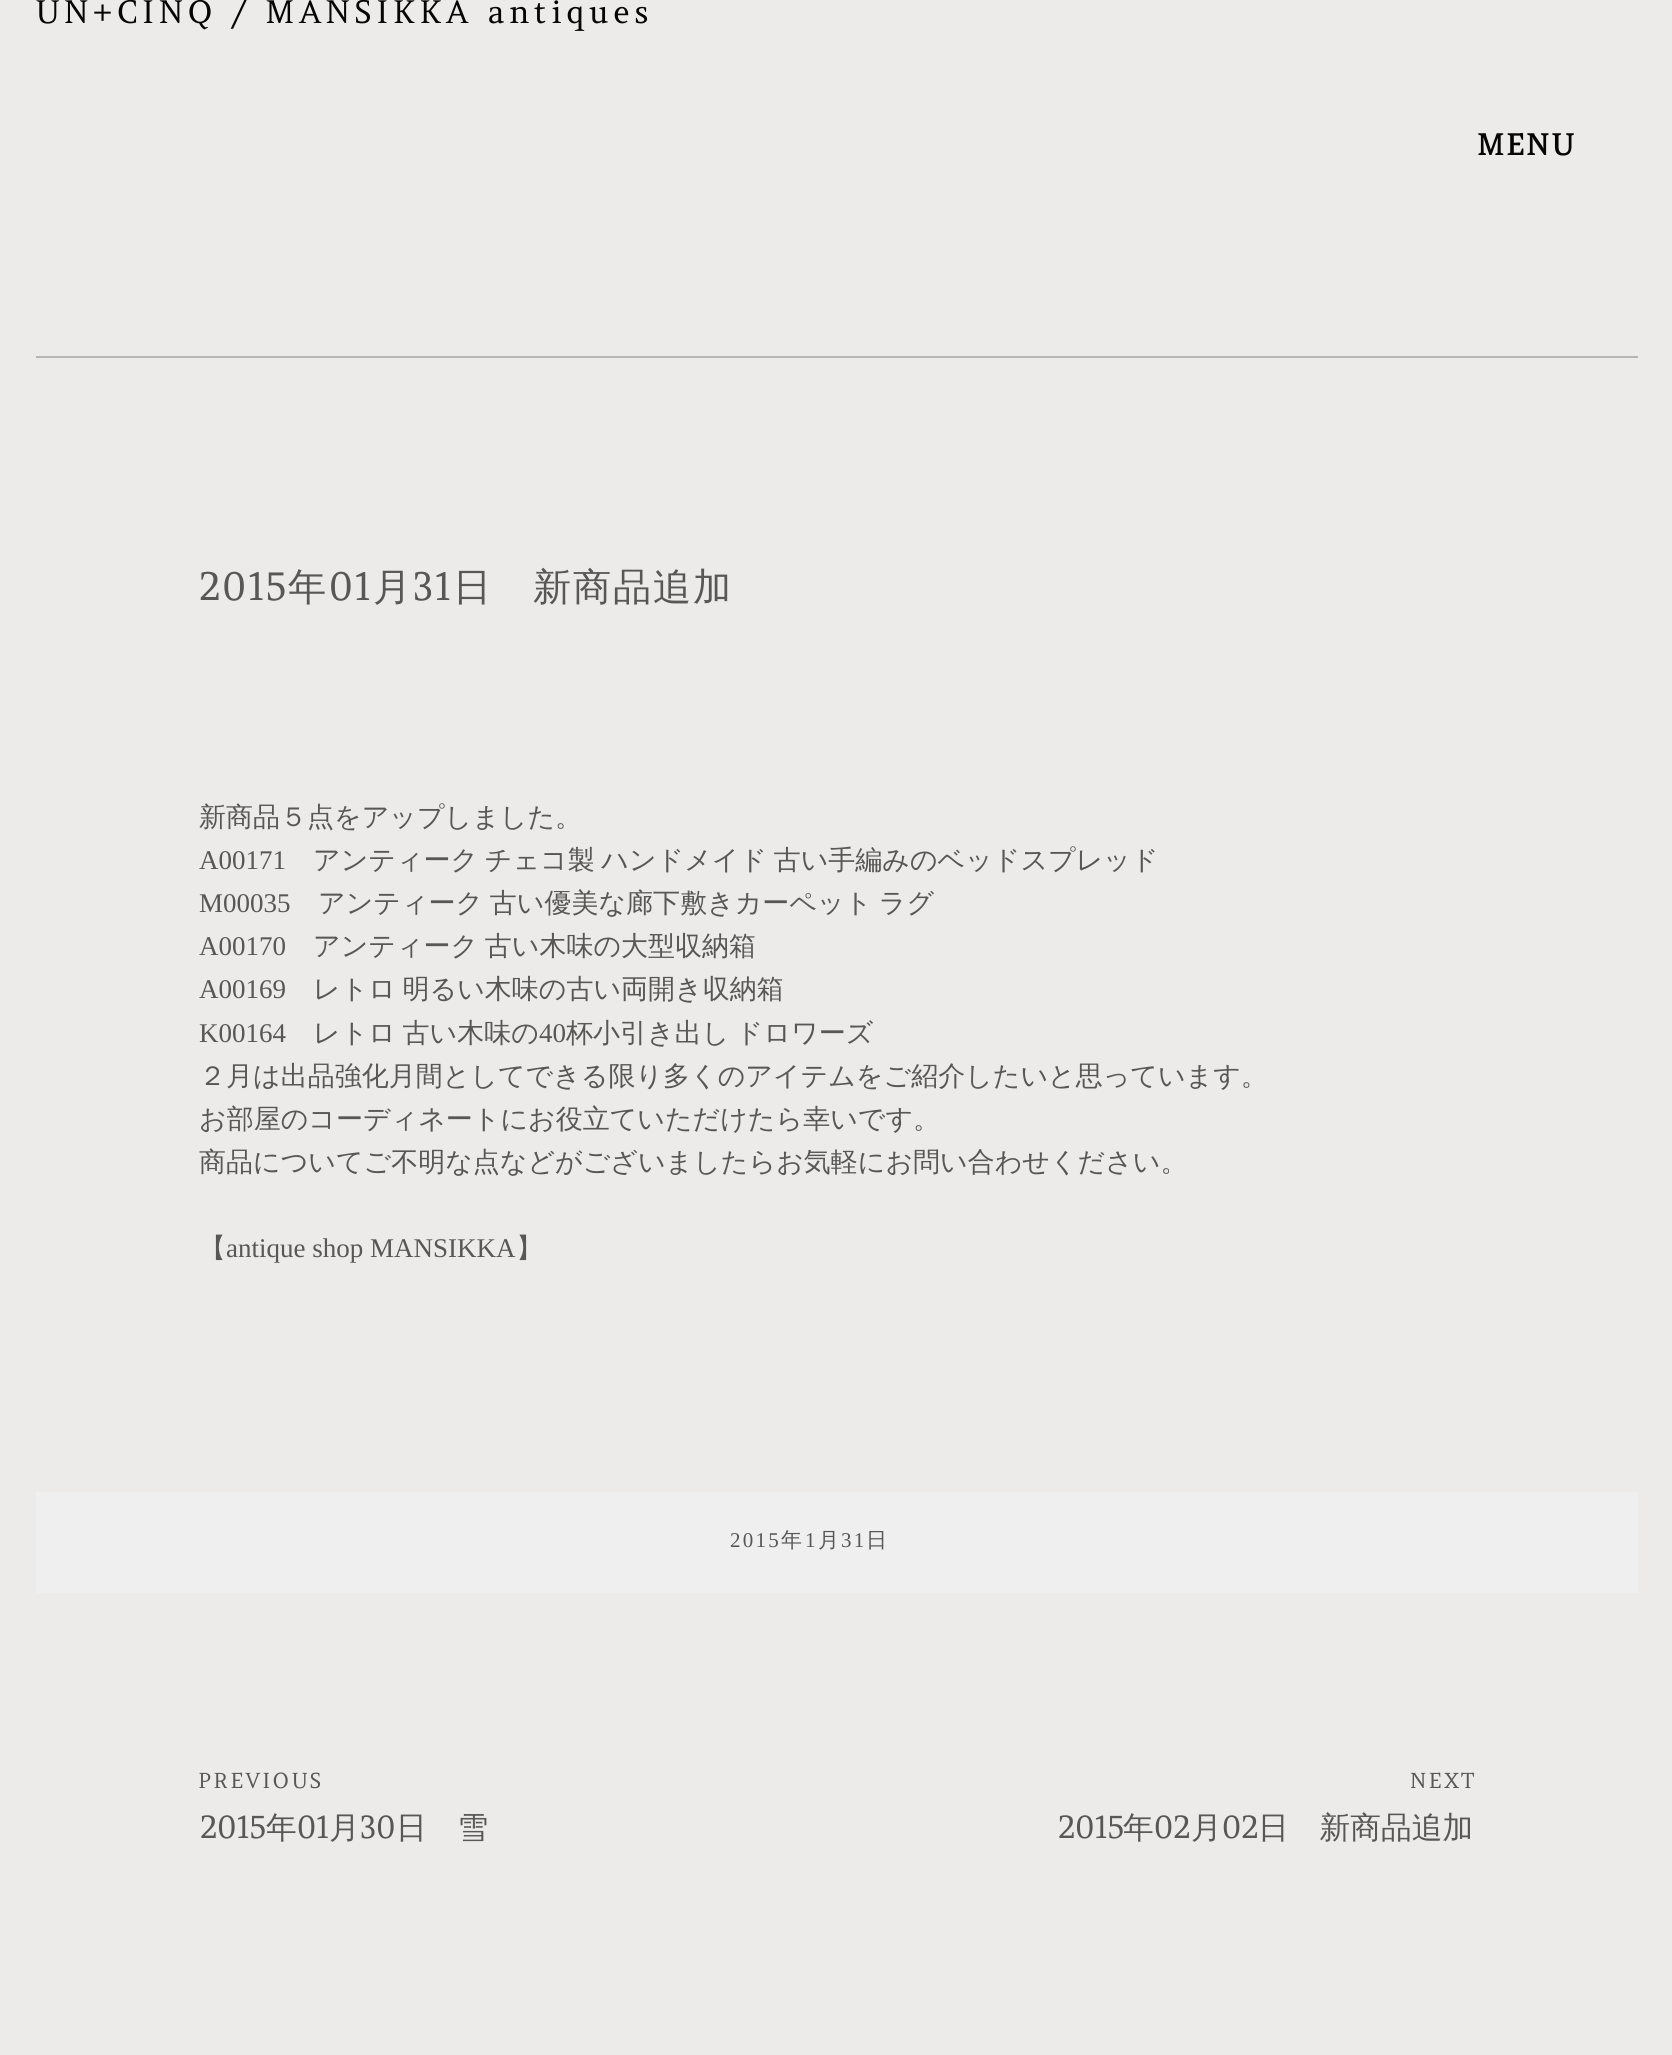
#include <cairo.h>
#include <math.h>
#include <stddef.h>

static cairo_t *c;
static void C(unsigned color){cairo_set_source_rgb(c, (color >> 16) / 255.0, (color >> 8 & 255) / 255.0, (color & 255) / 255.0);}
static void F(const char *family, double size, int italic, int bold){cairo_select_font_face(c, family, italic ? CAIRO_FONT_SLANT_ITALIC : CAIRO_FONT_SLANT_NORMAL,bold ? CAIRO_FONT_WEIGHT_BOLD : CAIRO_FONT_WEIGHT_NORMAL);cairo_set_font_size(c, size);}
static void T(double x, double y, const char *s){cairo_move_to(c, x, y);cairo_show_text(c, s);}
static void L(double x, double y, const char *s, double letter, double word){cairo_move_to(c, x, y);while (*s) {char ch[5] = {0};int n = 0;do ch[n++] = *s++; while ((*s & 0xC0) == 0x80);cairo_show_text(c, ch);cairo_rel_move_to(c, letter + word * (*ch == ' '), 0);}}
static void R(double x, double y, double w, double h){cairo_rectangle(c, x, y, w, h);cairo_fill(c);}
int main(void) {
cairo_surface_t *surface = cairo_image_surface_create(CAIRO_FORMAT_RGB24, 1672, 2055);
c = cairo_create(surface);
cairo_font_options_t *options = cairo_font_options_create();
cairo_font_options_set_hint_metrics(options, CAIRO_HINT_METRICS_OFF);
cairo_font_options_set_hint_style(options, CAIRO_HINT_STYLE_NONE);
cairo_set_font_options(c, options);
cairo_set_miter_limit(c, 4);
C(0xecebe9);
cairo_paint(c);
C(0xb5b5b5);
R(36,356,1602,2);
F("Amethysta",31.5,0,0);
C(0x050505);
L(35,23,"UN+CINQ / MANSIKKA antiques",4.5,0);
F("Amethysta",29,0,1);
L(1477,155,"MENU",2.25,0);
F("Amethysta",38.25,0,0);
C(0x575757);
L(199,600,"2015",1.75,0);
F("WenQuanYi Zen Hei Medium",38.25,0,0);
L(288,600,"年",1.75,0);
F("Amethysta",38.25,0,0);
L(329,600,"01",1.75,0);
F("WenQuanYi Zen Hei Medium",38.25,0,0);
L(373,600,"月",1.75,0);
F("Amethysta",38.25,0,0);
L(413,600,"31",1.75,0);
F("WenQuanYi Zen Hei Medium",38.25,0,0);
L(453,600,"日　新商品追加",1.75,0);
F("WenQuanYi Zen Hei Medium",27,0,0);
T(199,826,"新商品５点をアップしました。");
F("Liberation Serif",27,0,0);
T(199,869,"A00171");
F("WenQuanYi Zen Hei Medium",27,0,0);
L(313,869,"アンティーク チェコ製 ハンドメイド 古い手編みのベッドスプレッド",0,-1.5);
F("Liberation Serif",27,0,0);
T(199,912,"M00035");
F("WenQuanYi Zen Hei Medium",27,0,0);
L(318,912,"アンティーク 古い優美な廊下敷きカーペット ラグ",0,-1.5);
F("Liberation Serif",27,0,0);
T(199,955,"A00170");
F("WenQuanYi Zen Hei Medium",27,0,0);
L(313,955,"アンティーク 古い木味の大型収納箱",0,-1.5);
F("Liberation Serif",27,0,0);
T(199,998,"A00169");
F("WenQuanYi Zen Hei Medium",27,0,0);
L(313,998,"レトロ 明るい木味の古い両開き収納箱",0,-1.5);
F("Liberation Serif",27,0,0);
T(199,1042,"K00164");
F("WenQuanYi Zen Hei Medium",27,0,0);
L(313,1042,"レトロ 古い木味の",0,-1.5);
F("Liberation Serif",27,0,0);
T(539,1042,"40");
F("WenQuanYi Zen Hei Medium",27,0,0);
L(566,1042,"杯小引き出し ドロワーズ",0,-1.5);
T(199,1085,"２月は出品強化月間としてできる限り多くのアイテムをご紹介したいと思っています。");
T(199,1128,"お部屋のコーディネートにお役立ていただけたら幸いです。");
T(199,1171,"商品についてご不明な点などがございましたらお気軽にお問い合わせください。");
T(199,1257,"【");
F("Liberation Serif",27,0,0);
T(226,1257,"antique shop MANSIKKA");
F("WenQuanYi Zen Hei Medium",27,0,0);
T(516,1257,"】");
C(0xefefef);
R(36,1492,1602,101);
F("Liberation Serif",21,0,0);
C(0x575757);
L(730,1547,"2015",2.25,0);
F("WenQuanYi Zen Hei Medium",21,0,0);
L(781,1547,"年",2.25,0);
F("Liberation Serif",21,0,0);
L(805,1547,"1",2.25,0);
F("WenQuanYi Zen Hei Medium",21,0,0);
L(818,1547,"月",2.25,0);
F("Liberation Serif",21,0,0);
L(841,1547,"31",2.25,0);
F("WenQuanYi Zen Hei Medium",21,0,0);
L(866,1547,"日",2.25,0);
F("Amethysta",21,0,0);
L(198,1788,"PREVIOUS",2.25,0);
F("Amethysta",30.75,0,0);
T(200,1838,"2015");
F("WenQuanYi Zen Hei Medium",30.75,0,0);
T(266,1838,"年");
F("Amethysta",30.75,0,0);
T(297,1838,"01");
F("WenQuanYi Zen Hei Medium",30.75,0,0);
T(329,1838,"月");
F("Amethysta",30.75,0,0);
T(360,1838,"30");
F("WenQuanYi Zen Hei Medium",30.75,0,0);
T(396,1838,"日　雪");
F("Amethysta",21,0,0);
L(1410,1788,"NEXT",2.25,0);
F("Amethysta",30.75,0,0);
T(1058,1838,"2015");
F("WenQuanYi Zen Hei Medium",30.75,0,0);
T(1123,1838,"年");
F("Amethysta",30.75,0,0);
T(1154,1838,"02");
F("WenQuanYi Zen Hei Medium",30.75,0,0);
T(1191,1838,"月");
F("Amethysta",30.75,0,0);
T(1222,1838,"02");
F("WenQuanYi Zen Hei Medium",30.75,0,0);
T(1258,1838,"日　新商品追加");
cairo_surface_write_to_png(surface, "o.png");
cairo_font_options_destroy(options);
cairo_destroy(c);
cairo_surface_destroy(surface);
return 0;
}
